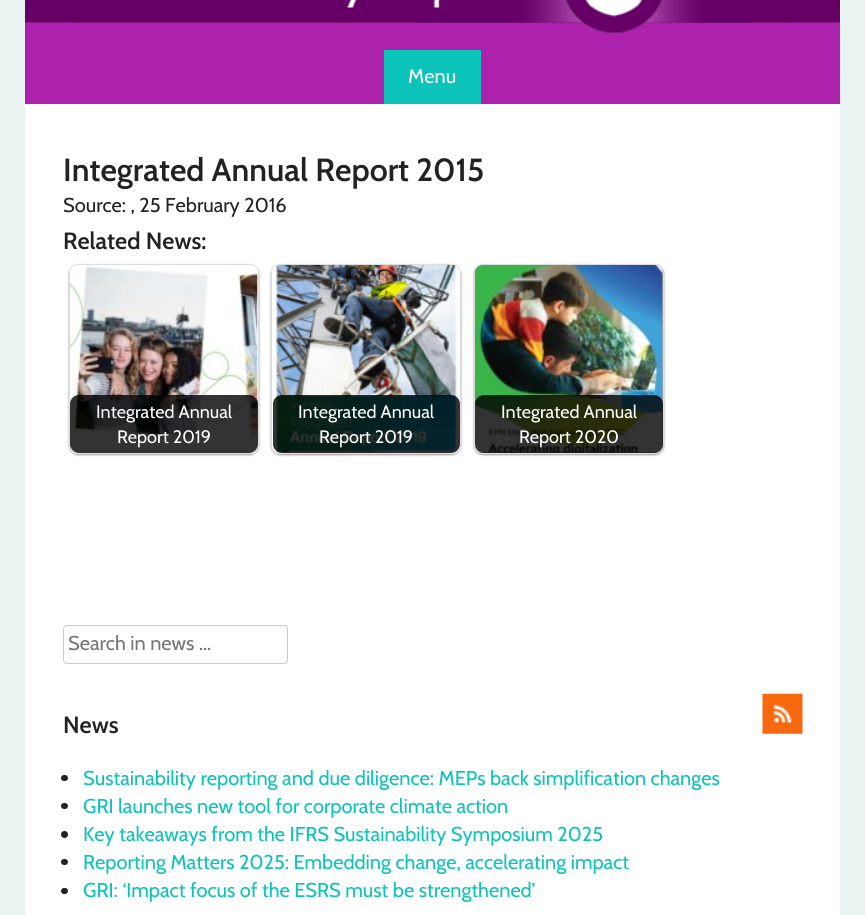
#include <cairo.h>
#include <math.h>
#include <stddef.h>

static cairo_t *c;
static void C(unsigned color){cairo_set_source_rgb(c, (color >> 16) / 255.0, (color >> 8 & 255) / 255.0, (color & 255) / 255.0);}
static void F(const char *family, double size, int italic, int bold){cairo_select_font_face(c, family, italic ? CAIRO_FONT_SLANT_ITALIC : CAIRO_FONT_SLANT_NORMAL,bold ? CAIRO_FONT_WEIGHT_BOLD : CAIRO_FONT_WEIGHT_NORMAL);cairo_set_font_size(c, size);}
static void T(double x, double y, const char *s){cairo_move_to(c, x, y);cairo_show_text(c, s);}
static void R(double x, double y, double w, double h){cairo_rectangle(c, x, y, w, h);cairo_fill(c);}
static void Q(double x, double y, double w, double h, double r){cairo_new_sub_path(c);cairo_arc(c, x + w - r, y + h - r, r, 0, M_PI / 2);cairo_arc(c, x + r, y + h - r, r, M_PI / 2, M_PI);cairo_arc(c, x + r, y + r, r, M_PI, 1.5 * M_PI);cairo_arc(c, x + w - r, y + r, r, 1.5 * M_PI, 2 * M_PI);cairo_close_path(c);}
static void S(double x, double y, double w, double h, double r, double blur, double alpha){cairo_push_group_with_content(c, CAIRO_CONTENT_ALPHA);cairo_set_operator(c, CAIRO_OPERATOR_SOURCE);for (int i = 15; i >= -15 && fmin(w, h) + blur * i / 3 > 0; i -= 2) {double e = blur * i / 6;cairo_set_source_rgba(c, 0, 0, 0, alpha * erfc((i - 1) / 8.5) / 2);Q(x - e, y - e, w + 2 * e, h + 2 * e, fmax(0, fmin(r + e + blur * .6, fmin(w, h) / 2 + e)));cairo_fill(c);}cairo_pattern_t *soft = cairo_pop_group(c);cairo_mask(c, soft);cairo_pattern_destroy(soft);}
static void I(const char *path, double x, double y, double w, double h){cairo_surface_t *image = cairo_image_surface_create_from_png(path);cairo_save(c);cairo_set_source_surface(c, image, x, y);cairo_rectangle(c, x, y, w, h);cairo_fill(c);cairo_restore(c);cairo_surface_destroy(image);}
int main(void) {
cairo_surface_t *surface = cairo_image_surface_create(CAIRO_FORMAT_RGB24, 865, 915);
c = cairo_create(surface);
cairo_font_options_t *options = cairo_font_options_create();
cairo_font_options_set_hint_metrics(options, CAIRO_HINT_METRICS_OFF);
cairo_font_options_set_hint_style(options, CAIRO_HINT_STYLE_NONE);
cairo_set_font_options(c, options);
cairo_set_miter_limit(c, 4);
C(0xe9f3f1);
cairo_paint(c);
C(0xffffff);
R(25,104,815,811);
C(0xac22ac);
R(25,21,815,83);
I("1.png",25,0,815,23);
I("2.png",72,0,722,33);
C(0x0bc3b9);
R(384,50,97,54);
F("Cabin",20,0,0);
C(0xffffff);
T(408,83,"Menu");
F("Cabin SemiBold",32,0,0);
C(0x222222);
T(63,181,"Integrated Annual Report 2015");
F("Cabin",20,0,0);
T(63,212,"Source: , 25 February 2016");
F("Cabin SemiBold",23.5,0,0);
T(63,249,"Related News:");
cairo_save(c);
cairo_set_fill_rule(c,CAIRO_FILL_RULE_EVEN_ODD);
cairo_new_path(c);
cairo_move_to(c,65,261);
cairo_line_to(c,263,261);
cairo_line_to(c,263,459);
cairo_line_to(c,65,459);
cairo_close_path(c);
cairo_move_to(c,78,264);
cairo_line_to(c,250,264);
cairo_curve_to(c,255,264,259,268,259,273);
cairo_line_to(c,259,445);
cairo_curve_to(c,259,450,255,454,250,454);
cairo_line_to(c,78,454);
cairo_curve_to(c,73,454,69,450,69,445);
cairo_line_to(c,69,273);
cairo_curve_to(c,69,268,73,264,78,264);
cairo_close_path(c);
cairo_clip(c);
C(0x000000);
S(69,265,190,190,9,1,.4);
cairo_restore(c);
Q(69.5,264.5,189,189,8.5);
C(0xdddddd);
cairo_set_line_width(c,1);
cairo_stroke(c);
I("3.png",70,265,188,186);
cairo_save(c);
Q(70,265,188,188,8);
cairo_clip(c);
cairo_set_source_rgba(c,0,0,0,0.8);
Q(70,395,188,58,9);
cairo_fill(c);
cairo_restore(c);
F("Cabin",18,0,0);
C(0xffffff);
T(96,418,"Integrated Annual");
T(117,443,"Report 2019");
cairo_save(c);
cairo_set_fill_rule(c,CAIRO_FILL_RULE_EVEN_ODD);
cairo_new_path(c);
cairo_move_to(c,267,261);
cairo_line_to(c,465,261);
cairo_line_to(c,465,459);
cairo_line_to(c,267,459);
cairo_close_path(c);
cairo_move_to(c,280,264);
cairo_line_to(c,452,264);
cairo_curve_to(c,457,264,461,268,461,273);
cairo_line_to(c,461,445);
cairo_curve_to(c,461,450,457,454,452,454);
cairo_line_to(c,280,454);
cairo_curve_to(c,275,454,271,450,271,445);
cairo_line_to(c,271,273);
cairo_curve_to(c,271,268,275,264,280,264);
cairo_close_path(c);
cairo_clip(c);
C(0x000000);
S(271,265,190,190,9,1,.4);
cairo_restore(c);
Q(271.5,264.5,189,189,8.5);
C(0xdddddd);
cairo_stroke(c);
I("4.png",274,265,186,188);
cairo_save(c);
Q(273,265,187,188,8);
cairo_clip(c);
cairo_set_source_rgba(c,0,0,0,0.8);
Q(273,395,187,58,9);
cairo_fill(c);
cairo_restore(c);
C(0xffffff);
T(298,418,"Integrated Annual");
T(319,443,"Report 2019");
C(0x000000);
S(474,265,190,190,9,1,.4);
Q(474.5,264.5,189,189,8.5);
C(0xdddddd);
cairo_stroke(c);
I("5.png",475,265,188,188);
cairo_save(c);
Q(475,265,188,188,8);
cairo_clip(c);
cairo_set_source_rgba(c,0,0,0,0.8);
Q(475,395,188,58,9);
cairo_fill(c);
cairo_restore(c);
C(0xffffff);
T(501,418,"Integrated Annual");
T(519,443,"Report 2020");
Q(63.5,625.5,224,38,3.5);
C(0xcccccc);
cairo_stroke(c);
F("Cabin",20,0,0);
C(0x757575);
T(68,650,"Search in news …");
F("Cabin SemiBold",23.5,0,0);
C(0x222222);
T(63,733,"News");
Q(61,775,7,6,3);
cairo_fill(c);
F("Cabin",20,0,0);
C(0x0bc3b9);
T(83,785,"Sustainability reporting and due diligence: MEPs back simplification changes");
C(0x222222);
Q(61,803,7,6,3);
cairo_fill(c);
C(0x0bc3b9);
T(83,813,"GRI launches new tool for corporate climate action");
C(0x222222);
cairo_new_path(c);
cairo_arc(c,64.5,834.5,3.5,0,2 * M_PI);
cairo_fill(c);
C(0x0bc3b9);
T(83,841,"Key takeaways from the IFRS Sustainability Symposium 2025");
C(0x222222);
Q(61,859,7,6,3);
cairo_fill(c);
C(0x0bc3b9);
T(83,869,"Reporting Matters 2025: Embedding change, accelerating impact");
C(0x222222);
Q(61,888,7,6,3);
cairo_fill(c);
C(0x0bc3b9);
T(83,897,"GRI: ‘Impact focus of the ESRS must be strengthened’");
I("6.png",762,693,41,41);
cairo_surface_write_to_png(surface, "o.png");
cairo_font_options_destroy(options);
cairo_destroy(c);
cairo_surface_destroy(surface);
return 0;
}
